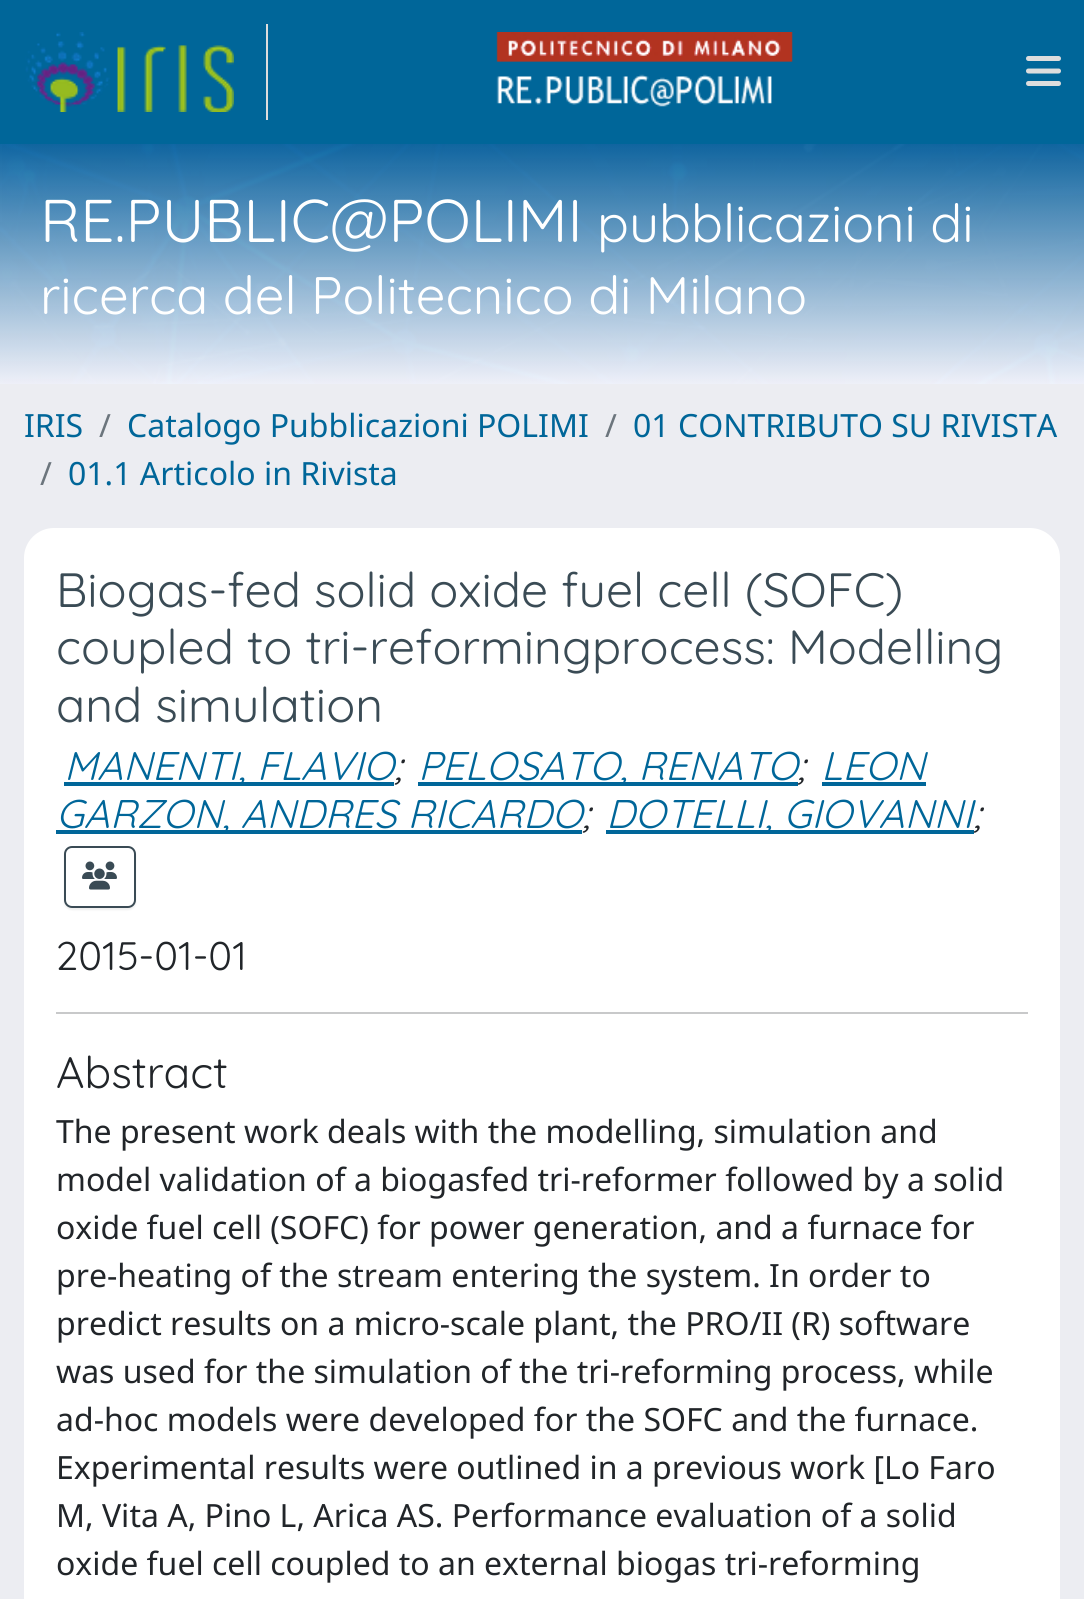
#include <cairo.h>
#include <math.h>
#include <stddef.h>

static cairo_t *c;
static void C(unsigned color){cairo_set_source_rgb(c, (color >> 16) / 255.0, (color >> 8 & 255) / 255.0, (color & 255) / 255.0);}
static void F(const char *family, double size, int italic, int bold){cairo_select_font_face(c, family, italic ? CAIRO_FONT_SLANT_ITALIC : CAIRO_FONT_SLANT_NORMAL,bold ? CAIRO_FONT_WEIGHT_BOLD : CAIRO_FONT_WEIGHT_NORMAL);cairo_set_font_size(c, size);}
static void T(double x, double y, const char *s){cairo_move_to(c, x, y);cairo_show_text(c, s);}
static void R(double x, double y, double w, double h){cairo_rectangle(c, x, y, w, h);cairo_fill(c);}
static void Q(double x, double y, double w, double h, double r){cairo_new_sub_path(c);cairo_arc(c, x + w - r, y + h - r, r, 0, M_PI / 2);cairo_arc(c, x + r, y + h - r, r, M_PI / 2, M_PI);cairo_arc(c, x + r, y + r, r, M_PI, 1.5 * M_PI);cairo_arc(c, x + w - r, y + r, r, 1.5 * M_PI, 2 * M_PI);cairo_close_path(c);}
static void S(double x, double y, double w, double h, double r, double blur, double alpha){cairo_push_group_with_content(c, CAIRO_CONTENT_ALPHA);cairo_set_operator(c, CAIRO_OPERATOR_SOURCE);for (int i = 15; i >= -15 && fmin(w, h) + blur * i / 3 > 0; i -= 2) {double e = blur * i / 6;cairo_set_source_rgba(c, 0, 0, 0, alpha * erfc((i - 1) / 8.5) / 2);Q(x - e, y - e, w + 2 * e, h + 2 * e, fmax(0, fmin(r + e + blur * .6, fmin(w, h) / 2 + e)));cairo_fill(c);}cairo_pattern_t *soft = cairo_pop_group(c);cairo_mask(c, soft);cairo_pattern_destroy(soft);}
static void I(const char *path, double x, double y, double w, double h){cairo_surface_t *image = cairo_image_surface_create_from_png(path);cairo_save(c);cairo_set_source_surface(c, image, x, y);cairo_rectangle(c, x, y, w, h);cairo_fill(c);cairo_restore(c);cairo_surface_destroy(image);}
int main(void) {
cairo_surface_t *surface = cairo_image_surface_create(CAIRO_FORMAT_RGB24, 1084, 1599);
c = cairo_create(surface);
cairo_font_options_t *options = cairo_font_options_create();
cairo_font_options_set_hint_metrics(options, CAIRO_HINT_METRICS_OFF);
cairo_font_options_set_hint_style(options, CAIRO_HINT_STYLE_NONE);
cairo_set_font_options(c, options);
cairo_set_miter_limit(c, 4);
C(0xecedf2);
cairo_paint(c);
C(0x006699);
R(0,0,1084,144);
C(0xdddddd);
R(266,24,2,96);
I("1.png",25,32,209,80);
I("2.png",496,32,297,75);
I("3.png",1026,56,35,30);
I("4.png",0,144,1084,240);
F("Quicksand Light",60.25,0,0);
C(0xffffff);
T(40,242,"RE.PUBLIC@POLIMI");
F("Quicksand Light",52.75,0,0);
T(597,242,"pubblicazioni di");
T(40,314,"ricerca del Politecnico di Milano");
F("Noto Sans",32,0,0);
C(0x006699);
T(24,437,"IRIS");
C(0x6c757d);
T(99,437,"/");
C(0x006699);
T(127,437,"Catalogo Pubblicazioni POLIMI");
C(0x6c757d);
T(605,437,"/");
C(0x006699);
T(633,437,"01 CONTRIBUTO SU RIVISTA");
C(0x6c757d);
T(40,485,"/");
C(0x006699);
T(68,485,"01.1 Articolo in Rivista");
C(0xffffff);
Q(24,528,1036,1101,30);
cairo_fill(c);
F("Quicksand Light",48.1,0,0);
C(0x3a4b55);
T(56,607,"Biogas-fed solid oxide fuel cell (SOFC)");
T(56,664,"coupled to tri-reformingprocess: Modelling");
T(56,722,"and simulation");
C(0x006699);
R(64,782,330,4);
F("Quicksand Light",40,1,0);
T(64,780,"MANENTI, FLAVIO");
C(0x212529);
T(394,780,";");
C(0x006699);
R(418,782,380,4);
T(418,780,"PELOSATO, RENATO");
C(0x212529);
T(797,780,";");
C(0x006699);
T(821,780,"LEON");
R(822,782,104,4);
R(56,830,526,4);
T(56,828,"GARZON, ANDRES RICARDO");
C(0x212529);
T(582,828,";");
C(0x006699);
R(606,830,368,4);
T(606,828,"DOTELLI, GIOVANNI");
C(0x212529);
T(973,828,";");
cairo_save(c);
cairo_set_fill_rule(c,CAIRO_FILL_RULE_EVEN_ODD);
cairo_new_path(c);
cairo_move_to(c,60,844);
cairo_line_to(c,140,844);
cairo_line_to(c,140,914);
cairo_line_to(c,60,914);
cairo_close_path(c);
cairo_move_to(c,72,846);
cairo_line_to(c,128,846);
cairo_curve_to(c,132.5,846,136,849.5,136,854);
cairo_line_to(c,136,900);
cairo_curve_to(c,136,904.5,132.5,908,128,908);
cairo_line_to(c,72,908);
cairo_curve_to(c,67.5,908,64,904.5,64,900);
cairo_line_to(c,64,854);
cairo_curve_to(c,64,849.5,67.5,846,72,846);
cairo_close_path(c);
cairo_clip(c);
C(0x000000);
S(64,848,72,62,8,1,.07);
cairo_restore(c);
Q(65,847,70,60,7);
C(0x3a4b55);
cairo_stroke(c);
I("5.png",82,861,35,29);
F("Quicksand Light",40,0,0);
C(0x212529);
T(56,970,"2015-01-01");
C(0xc8c9ca);
R(56,1012,972,2);
F("Quicksand Light",44,0,0);
C(0x212529);
T(56,1088,"Abstract");
F("Noto Sans",32,0,0);
T(56,1143,"The present work deals with the modelling, simulation and");
T(56,1191,"model validation of a biogasfed tri-reformer followed by a solid");
T(56,1239,"oxide fuel cell (SOFC) for power generation, and a furnace for");
T(56,1287,"pre-heating of the stream entering the system. In order to");
T(56,1335,"predict results on a micro-scale plant, the PRO/II (R) software");
T(56,1383,"was used for the simulation of the tri-reforming process, while");
T(56,1431,"ad-hoc models were developed for the SOFC and the furnace.");
T(56,1479,"Experimental results were outlined in a previous work [Lo Faro");
T(56,1527,"M, Vita A, Pino L, Arica AS. Performance evaluation of a solid");
T(56,1575,"oxide fuel cell coupled to an external biogas tri-reforming");
cairo_surface_write_to_png(surface, "o.png");
cairo_font_options_destroy(options);
cairo_destroy(c);
cairo_surface_destroy(surface);
return 0;
}
